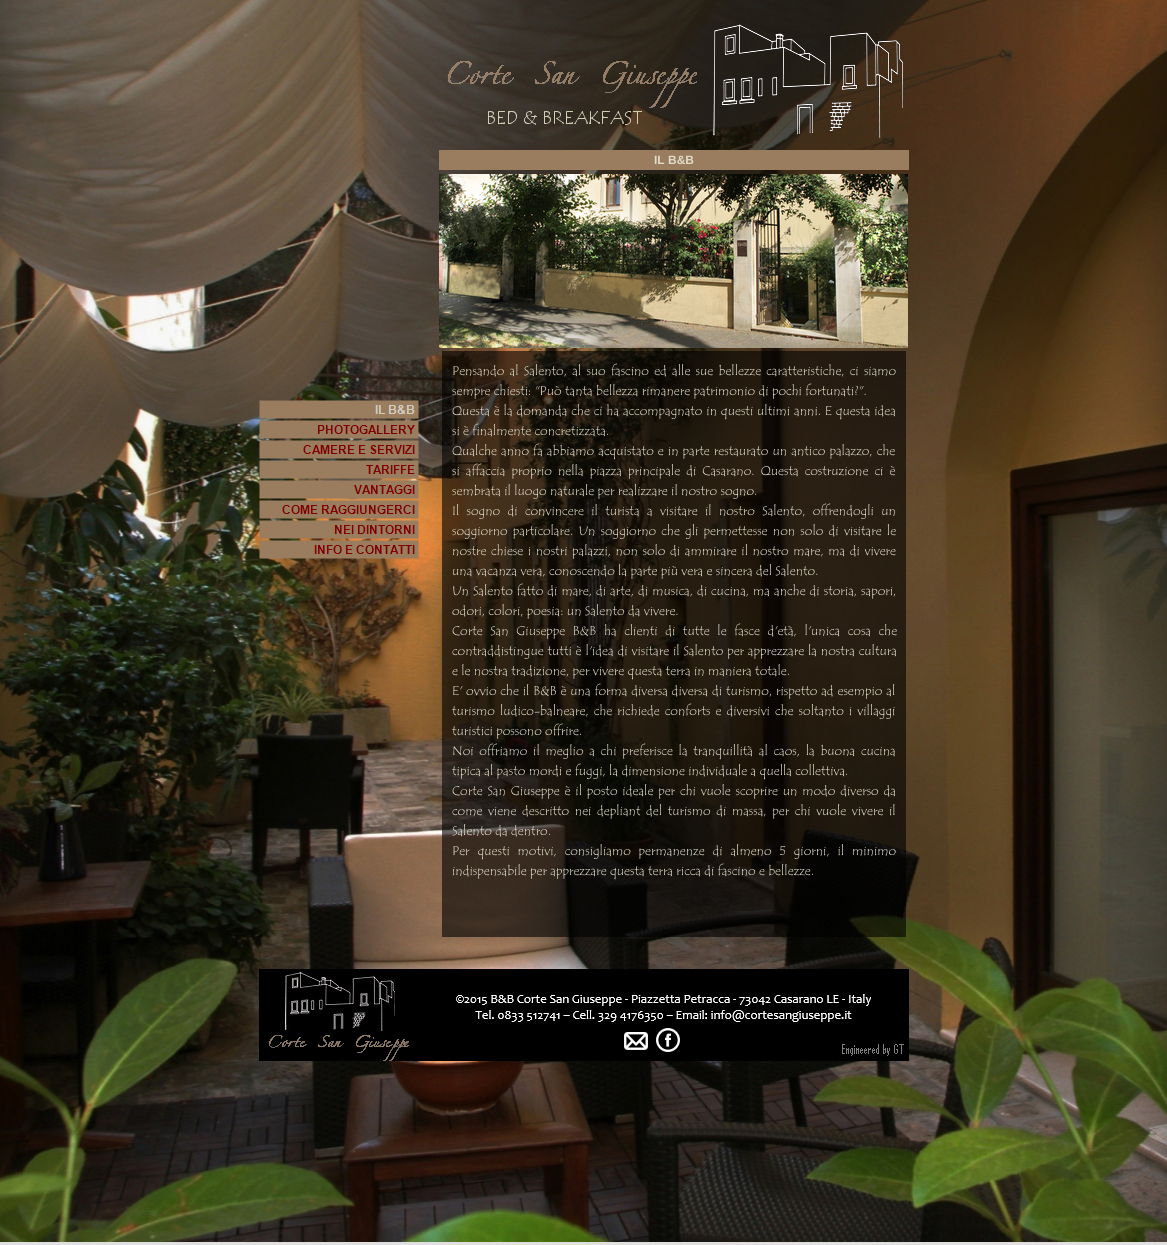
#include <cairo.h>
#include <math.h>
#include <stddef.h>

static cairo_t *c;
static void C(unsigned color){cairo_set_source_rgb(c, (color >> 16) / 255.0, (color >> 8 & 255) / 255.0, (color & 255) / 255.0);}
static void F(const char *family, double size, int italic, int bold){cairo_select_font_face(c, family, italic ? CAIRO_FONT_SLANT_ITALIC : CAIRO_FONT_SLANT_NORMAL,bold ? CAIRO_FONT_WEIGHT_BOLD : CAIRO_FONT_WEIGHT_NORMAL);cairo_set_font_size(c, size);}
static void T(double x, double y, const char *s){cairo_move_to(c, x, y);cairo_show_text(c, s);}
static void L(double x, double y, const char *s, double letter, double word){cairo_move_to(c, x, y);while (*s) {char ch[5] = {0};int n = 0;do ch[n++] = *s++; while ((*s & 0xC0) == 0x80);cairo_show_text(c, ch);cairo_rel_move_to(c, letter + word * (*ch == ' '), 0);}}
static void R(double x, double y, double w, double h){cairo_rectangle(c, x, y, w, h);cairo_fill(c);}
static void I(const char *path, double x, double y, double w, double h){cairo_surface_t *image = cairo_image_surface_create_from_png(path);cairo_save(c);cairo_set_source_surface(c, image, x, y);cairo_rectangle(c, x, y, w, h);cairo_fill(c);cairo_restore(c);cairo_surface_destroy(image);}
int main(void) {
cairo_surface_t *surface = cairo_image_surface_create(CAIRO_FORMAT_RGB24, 1167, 1245);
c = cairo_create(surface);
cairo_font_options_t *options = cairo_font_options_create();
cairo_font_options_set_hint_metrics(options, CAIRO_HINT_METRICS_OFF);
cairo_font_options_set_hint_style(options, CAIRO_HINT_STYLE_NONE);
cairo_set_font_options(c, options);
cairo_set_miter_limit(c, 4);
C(0xe0e0e0);
cairo_paint(c);
I("1.png",0,0,1167,1242);
I("2.png",488,24,415,114);
I("3.png",448,61,249,47);
I("4.png",259,400,160,19);
I("5.png",259,420,160,19);
I("6.png",259,440,160,19);
I("7.png",259,460,160,19);
I("8.png",259,480,160,19);
I("9.png",259,500,160,19);
I("10.png",259,520,160,19);
I("11.png",259,540,160,19);
C(0x9a7d5f);
R(439,150,470,20);
F("Liberation Sans",12,0,1);
C(0xe0dcc9);
T(654,164,"IL B&B");
I("12.png",439,174,469,174);
cairo_set_source_rgba(c,0,0,0,0.6);
R(442,351,464,560);
F("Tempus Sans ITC",13,0,0);
C(0xe0dcc9);
L(452,375,"Pensando al Salento, al suo fascino ed alle sue bellezze caratteristiche, ci siamo",0,1.9);
T(452,395,"sempre chiesti: \"Può tanta bellezza rimanere patrimonio di pochi fortunati?\".");
L(452,415,"Questa è la domanda che ci ha accompagnato in questi ultimi anni. E questa idea",0,.5);
T(452,435,"si è finalmente concretizzata.");
L(452,455,"Qualche anno fa abbiamo acquistato e in parte restaurato un antico palazzo, che",0,.75);
L(452,475,"si affaccia proprio nella piazza principale di Casarano. Questa costruzione ci è",0,2.75);
T(452,495,"sembrata il luogo naturale per realizzare il nostro sogno.");
L(452,515,"Il sogno di convincere il turista a visitare il nostro Salento, offrendogli un",0,4);
L(452,535,"soggiorno particolare. Un soggiorno che gli permettesse non solo di visitare le",0,1.9);
L(452,555,"nostre chiese i nostri palazzi, non solo di ammirare il nostro mare, ma di vivere",0,1.25);
T(452,575,"una vacanza vera, conoscendo la parte più vera e sincera del Salento.");
L(452,595,"Un Salento fatto di mare, di arte, di musica, di cucina, ma anche di storia, sapori,",0,.7);
T(452,615,"odori, colori, poesia: un Salento da vivere.");
L(452,635,"Corte San Giuseppe B&B ha clienti di tutte le fasce d'età, l'unica cosa che",0,4.25);
L(452,655,"contraddistingue tutti è l'idea di visitare il Salento per apprezzare la nostra cultura",0,.5);
T(452,675,"e le nostra tradizione, per vivere questa terra in maniera totale.");
L(452,695,"E' ovvio che il B&B è una forma diversa diversa di turismo, rispetto ad esempio al",0,.5);
L(452,715,"turismo ludico-balneare, che richiede conforts e diversivi che soltanto i villaggi",0,1.75);
T(452,735,"turistici possono offrire.");
L(452,755,"Noi offriamo il meglio a chi preferisce la tranquillità al caos, la buona cucina",0,2.4);
T(452,775,"tipica al pasto mordi e fuggi, la dimensione individuale a quella collettiva.");
L(452,795,"Corte San Giuseppe è il posto ideale per chi vuole scoprire un modo diverso da",0,1.5);
L(452,815,"come viene descritto nei depliant del turismo di massa, per chi vuole vivere il",0,2.25);
T(452,835,"Salento da dentro.");
L(452,855,"Per questi motivi, consigliamo permanenze di almeno 5 giorni, il minimo",0,4.5);
T(452,875,"indispensabile per apprezzare questa terra ricca di fascino e bellezze.");
cairo_set_source_rgba(c,0,0,0,0.6);
R(442,911,464,26);
I("13.png",259,969,650,92);
I("14.png",269,1035,140,26);
cairo_surface_write_to_png(surface, "o.png");
cairo_font_options_destroy(options);
cairo_destroy(c);
cairo_surface_destroy(surface);
return 0;
}
